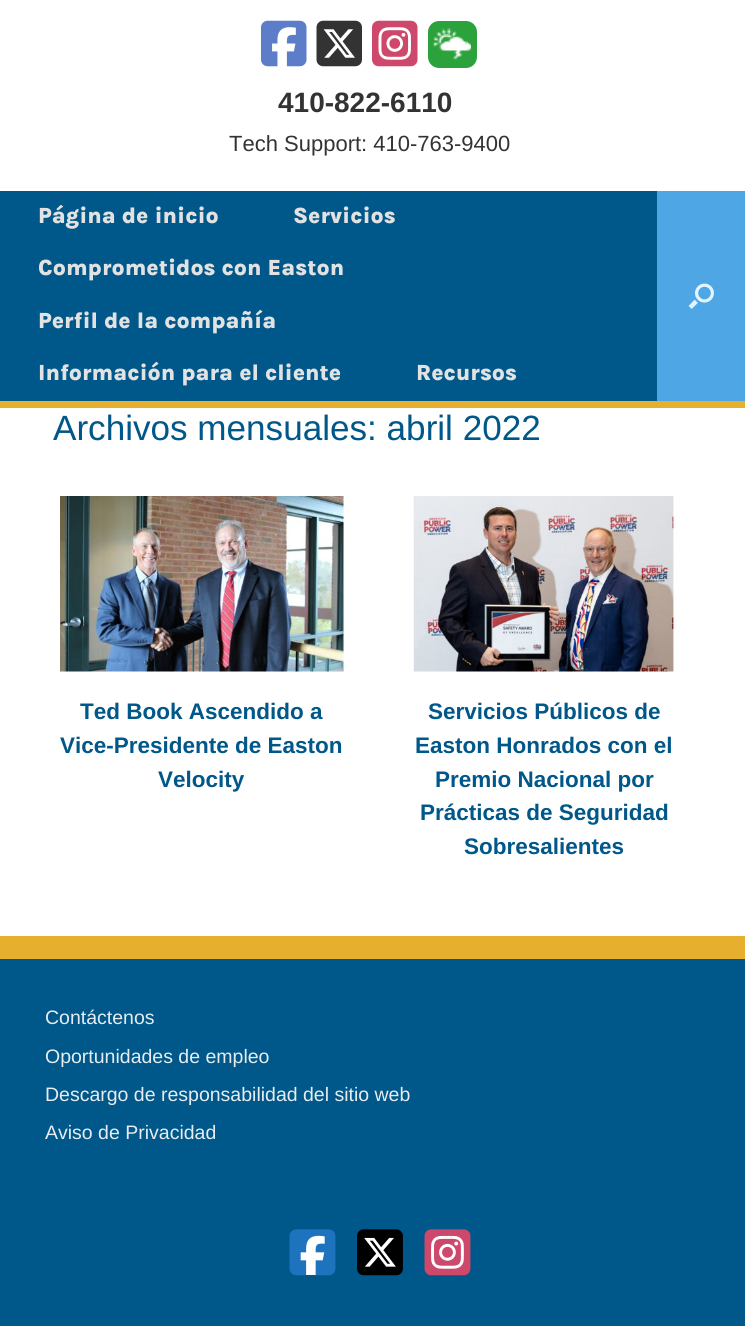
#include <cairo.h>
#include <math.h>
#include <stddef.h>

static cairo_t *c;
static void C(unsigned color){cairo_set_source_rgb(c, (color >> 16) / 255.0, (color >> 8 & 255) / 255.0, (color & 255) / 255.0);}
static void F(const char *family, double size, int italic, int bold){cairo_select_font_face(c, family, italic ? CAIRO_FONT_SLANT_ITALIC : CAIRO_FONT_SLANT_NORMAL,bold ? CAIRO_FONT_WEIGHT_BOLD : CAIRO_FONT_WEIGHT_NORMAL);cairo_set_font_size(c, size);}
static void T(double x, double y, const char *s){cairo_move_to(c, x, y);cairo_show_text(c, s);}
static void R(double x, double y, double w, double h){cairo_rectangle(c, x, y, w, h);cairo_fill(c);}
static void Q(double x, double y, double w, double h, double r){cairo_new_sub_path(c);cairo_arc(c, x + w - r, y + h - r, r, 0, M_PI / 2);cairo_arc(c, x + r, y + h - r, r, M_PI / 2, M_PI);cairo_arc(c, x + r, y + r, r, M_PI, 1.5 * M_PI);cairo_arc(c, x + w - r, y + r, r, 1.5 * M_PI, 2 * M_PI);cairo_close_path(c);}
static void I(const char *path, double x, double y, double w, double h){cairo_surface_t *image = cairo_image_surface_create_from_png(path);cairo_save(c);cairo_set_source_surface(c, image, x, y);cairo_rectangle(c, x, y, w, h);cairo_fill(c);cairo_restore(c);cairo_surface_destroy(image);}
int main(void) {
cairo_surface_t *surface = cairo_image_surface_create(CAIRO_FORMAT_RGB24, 745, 1326);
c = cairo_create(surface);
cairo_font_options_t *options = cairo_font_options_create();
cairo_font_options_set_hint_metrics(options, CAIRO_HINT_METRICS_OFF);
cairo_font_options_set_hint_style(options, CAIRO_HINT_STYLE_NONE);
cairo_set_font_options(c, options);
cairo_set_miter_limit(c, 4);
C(0x005789);
cairo_paint(c);
C(0xffffff);
R(0,0,745,191);
I("1.png",261,20,46,47);
I("2.png",316,20,46,47);
I("3.png",372,20,46,47);
C(0x2ba23b);
Q(428,21,49,47,11);
cairo_fill(c);
I("4.png",433,28,38,32);
F("Liberation Sans",28,0,1);
C(0x333333);
T(278,112,"410-822-6110");
F("Liberation Sans",22,0,0);
T(229,151,"Tech Support: 410-763-9400");
C(0xe6b02e);
R(0,401,745,7);
F("Karla ExtraBold",22.5,0,0);
C(0xe2e2e2);
T(38,223,"Página de inicio");
T(293,223,"Servicios");
T(38,275,"Comprometidos con Easton");
T(38,328,"Perfil de la compañía");
T(38,380,"Información para el cliente");
T(416,380,"Recursos");
C(0x4fa6e5);
R(657,191,88,210);
I("5.png",688,283,26,26);
C(0xffffff);
R(0,408,745,528);
F("Liberation Sans",35.1,0,0);
C(0x005789);
T(53,440,"Archivos mensuales: abril 2022");
I("6.png",60,496,284,176);
F("Liberation Sans",22.5,0,1);
T(80,719,"Ted Book Ascendido a");
T(60,753,"Vice-Presidente de Easton");
T(158,787,"Velocity");
I("7.png",413,496,265,176);
T(428,719,"Servicios Públicos de");
T(415,753,"Easton Honrados con el");
T(435,787,"Premio Nacional por");
T(420,820,"Prácticas de Seguridad");
T(464,854,"Sobresalientes");
C(0xe6b02e);
R(0,936,745,23);
F("Liberation Sans",19.5,0,0);
C(0xe6ecf0);
T(45,1024,"Contáctenos");
T(45,1063,"Oportunidades de empleo");
T(45,1101,"Descargo de responsabilidad del sitio web");
T(45,1139,"Aviso de Privacidad");
C(0xffffff);
cairo_new_path(c);
cairo_move_to(c,334,1267);
cairo_curve_to(c,334,1271,331,1275,327,1275);
cairo_line_to(c,298,1275);
cairo_curve_to(c,294,1275,291,1271,291,1267);
cairo_line_to(c,291,1238);
cairo_curve_to(c,291,1234,294,1231,298,1231);
cairo_line_to(c,327,1231);
cairo_curve_to(c,331,1231,334,1234,334,1238);
cairo_close_path(c);
cairo_fill(c);
I("8.png",289,1229,47,47);
cairo_new_path(c);
cairo_move_to(c,402,1267);
cairo_curve_to(c,402,1271,399,1275,395,1275);
cairo_line_to(c,366,1275);
cairo_curve_to(c,362,1275,358,1271,358,1267);
cairo_line_to(c,358,1238);
cairo_curve_to(c,358,1234,362,1231,366,1231);
cairo_line_to(c,395,1231);
cairo_curve_to(c,399,1231,402,1234,402,1238);
cairo_close_path(c);
cairo_fill(c);
I("9.png",357,1229,46,47);
cairo_new_path(c);
cairo_move_to(c,470,1267);
cairo_curve_to(c,470,1271,466,1275,462,1275);
cairo_line_to(c,433,1275);
cairo_curve_to(c,429,1275,426,1271,426,1267);
cairo_line_to(c,426,1238);
cairo_curve_to(c,426,1234,429,1231,433,1231);
cairo_line_to(c,462,1231);
cairo_curve_to(c,466,1231,470,1234,470,1238);
cairo_close_path(c);
cairo_fill(c);
I("10.png",424,1229,47,47);
cairo_surface_write_to_png(surface, "o.png");
cairo_font_options_destroy(options);
cairo_destroy(c);
cairo_surface_destroy(surface);
return 0;
}
